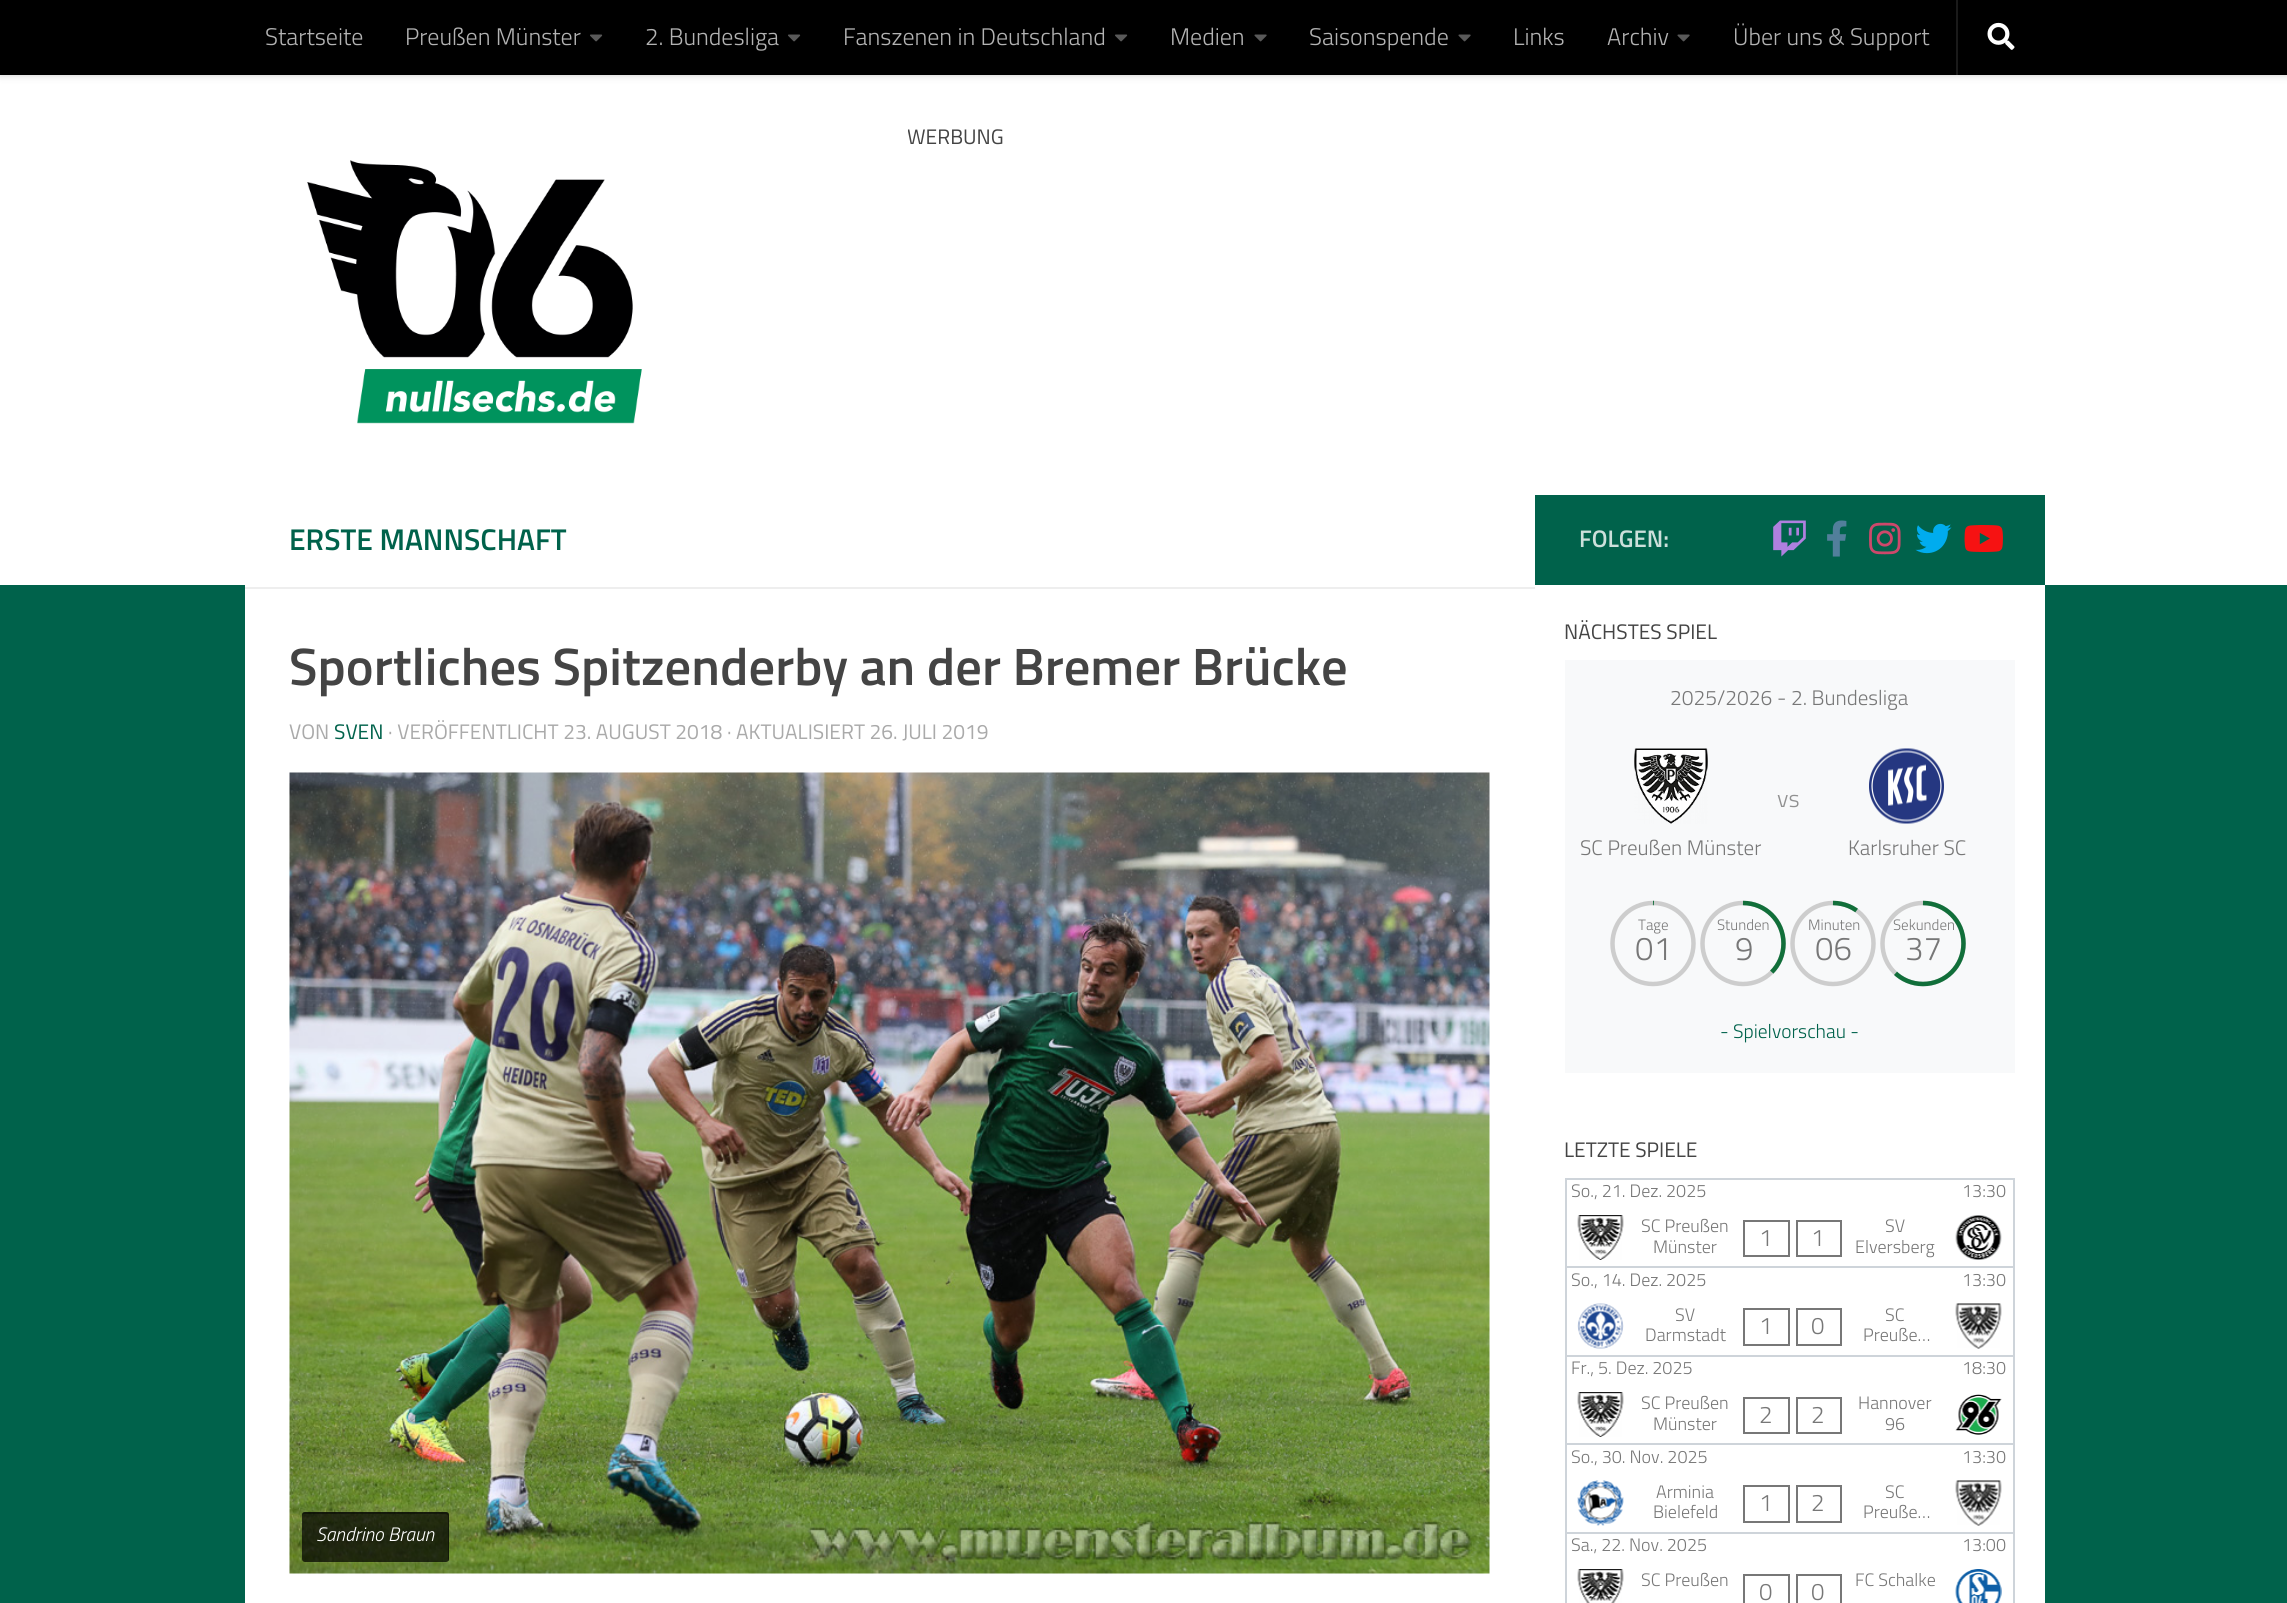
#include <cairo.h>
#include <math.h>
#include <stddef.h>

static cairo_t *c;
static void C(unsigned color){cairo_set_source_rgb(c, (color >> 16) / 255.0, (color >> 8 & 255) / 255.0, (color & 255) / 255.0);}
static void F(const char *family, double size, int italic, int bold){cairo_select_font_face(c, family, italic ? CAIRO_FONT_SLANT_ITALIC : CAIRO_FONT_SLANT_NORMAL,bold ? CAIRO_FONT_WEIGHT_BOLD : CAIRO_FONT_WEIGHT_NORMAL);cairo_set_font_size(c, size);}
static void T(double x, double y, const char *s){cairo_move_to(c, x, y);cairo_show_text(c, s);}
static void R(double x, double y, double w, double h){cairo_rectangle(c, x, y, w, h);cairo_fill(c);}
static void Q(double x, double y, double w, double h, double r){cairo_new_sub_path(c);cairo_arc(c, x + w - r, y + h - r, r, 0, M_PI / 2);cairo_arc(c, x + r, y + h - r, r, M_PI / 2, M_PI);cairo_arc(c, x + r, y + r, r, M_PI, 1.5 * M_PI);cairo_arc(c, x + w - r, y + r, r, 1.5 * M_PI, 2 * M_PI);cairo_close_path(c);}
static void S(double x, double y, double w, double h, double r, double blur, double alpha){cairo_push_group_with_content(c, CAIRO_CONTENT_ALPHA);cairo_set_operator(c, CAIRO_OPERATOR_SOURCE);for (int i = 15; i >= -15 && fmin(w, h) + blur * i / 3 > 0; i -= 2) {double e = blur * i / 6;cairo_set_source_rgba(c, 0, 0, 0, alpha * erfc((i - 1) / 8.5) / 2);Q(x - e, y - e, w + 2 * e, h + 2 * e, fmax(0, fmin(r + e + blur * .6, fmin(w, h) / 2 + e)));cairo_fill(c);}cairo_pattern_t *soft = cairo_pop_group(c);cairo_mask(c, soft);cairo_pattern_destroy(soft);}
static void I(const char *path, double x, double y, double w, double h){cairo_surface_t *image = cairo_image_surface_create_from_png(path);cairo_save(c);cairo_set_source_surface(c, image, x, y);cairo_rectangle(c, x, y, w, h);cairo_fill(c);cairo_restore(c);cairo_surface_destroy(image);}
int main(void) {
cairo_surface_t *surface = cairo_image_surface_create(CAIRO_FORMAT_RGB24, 2287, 1603);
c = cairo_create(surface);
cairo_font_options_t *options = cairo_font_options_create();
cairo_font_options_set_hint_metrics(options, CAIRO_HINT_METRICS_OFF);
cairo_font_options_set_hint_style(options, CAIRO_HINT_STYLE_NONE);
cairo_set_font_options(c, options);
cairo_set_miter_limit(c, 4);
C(0x00624b);
cairo_paint(c);
C(0xffffff);
R(0,75,2287,510);
C(0x000000);
S(0,0,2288,75,0,4,.2);
C(0x000000);
R(0,0,2287,75);
F("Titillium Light",24,0,0);
C(0xb3b3b3);
T(265,45,"Startseite");
T(405,45,"Preußen Münster");
I("1.png",590,34,13,8);
T(645,45,"2. Bundesliga");
I("1.png",788,34,13,8);
T(843,45,"Fanszenen in Deutschland");
I("1.png",1115,34,13,8);
T(1170,45,"Medien");
I("2.png",1254,34,13,8);
T(1309,45,"Saisonspende");
I("2.png",1458,34,13,8);
T(1513,45,"Links");
T(1607,45,"Archiv");
I("2.png",1677,34,13,8);
T(1733,45,"Über uns & Support");
C(0x1a1a1a);
R(1956,0,2,75);
I("3.png",1987,22,28,28);
cairo_save(c);
cairo_rectangle(c,908,120,1092,281);
cairo_clip(c);
F("Titillium",21,0,0);
C(0x444444);
T(907,144,"WERBUNG");
cairo_restore(c);
I("4.png",307,160,335,264);
C(0xffffff);
R(245,585,1800,1018);
C(0xeeeeee);
R(245,587,1290,2);
F("Titillium Web SemiBold",30,0,0);
C(0x00624b);
T(289,550,"ERSTE MANNSCHAFT");
F("Titillium Web SemiBold",52.6,0,0);
C(0x444444);
T(289,685,"Sportliches Spitzenderby an der Bremer Brücke");
F("Titillium",21,0,0);
C(0xaaaaaa);
T(289,739,"VON");
C(0x00624b);
T(334,739,"SVEN");
C(0xaaaaaa);
T(388,739,"· VERÖFFENTLICHT 23. AUGUST 2018 · AKTUALISIERT 26. JULI 2019");
I("5.png",289,772,1201,802);
cairo_set_source_rgba(c,1,1,1,0.03);
cairo_new_path(c);
cairo_move_to(c,302,1560);
cairo_curve_to(c,302,1562,303,1563,305,1563);
cairo_line_to(c,446,1563);
cairo_curve_to(c,448,1563,449,1562,449,1560);
cairo_line_to(c,449,1517);
cairo_line_to(c,448,1515);
cairo_line_to(c,448,1558);
cairo_curve_to(c,448,1560,447,1562,446,1562);
cairo_line_to(c,304,1562);
cairo_curve_to(c,303,1562,303,1561,302,1560);
cairo_close_path(c);
cairo_fill(c);
cairo_set_source_rgba(c,0,0,0,0.7);
Q(302,1512,147,50,3);
cairo_fill(c);
cairo_set_source_rgba(c,0,0,0,0.4);
cairo_new_path(c);
cairo_move_to(c,304,1514);
cairo_line_to(c,446,1514);
cairo_curve_to(c,447,1514,448,1515,448,1516);
cairo_line_to(c,448,1561);
cairo_curve_to(c,449,1561,449,1560,449,1559);
cairo_line_to(c,449,1515);
cairo_curve_to(c,449,1513,448,1512,446,1512);
cairo_line_to(c,305,1512);
cairo_curve_to(c,303,1512,302,1513,302,1515);
cairo_line_to(c,302,1516);
cairo_curve_to(c,302,1515,303,1514,304,1514);
cairo_close_path(c);
cairo_fill(c);
F("Titillium Light",19.5,1,0);
C(0xffffff);
T(316,1541,"Sandrino Braun");
C(0x00624b);
R(1535,495,510,90);
F("Titillium SemiBold",24,0,0);
C(0xcce0db);
T(1579,547,"FOLGEN:");
I("6.png",1773,520,33,37);
I("7.png",1827,520,20,37);
I("8.png",1869,522,32,33);
I("9.png",1915,523,37,31);
I("10.png",1964,525,39,27);
F("Titillium",21,0,0);
C(0x444444);
T(1564,639,"NÄCHSTES SPIEL");
C(0xf8f9fa);
R(1565,660,450,413);
F("Titillium Light",21,0,0);
C(0x777777);
T(1670,705,"2025/2026 - 2. Bundesliga");
F("Titillium Light",24,0,0);
C(0x919191);
T(1777,807,"vs");
I("11.png",1634,748,74,76);
F("Titillium Light",21,0,0);
C(0x777777);
T(1580,855,"SC Preußen Münster");
I("12.png",1869,748,75,76);
T(1848,855,"Karlsruher SC");
cairo_new_path(c);
cairo_move_to(c,1653,903);
cairo_curve_to(c,1630.5,903,1612.5,921,1612.5,943.5);
cairo_curve_to(c,1612.5,966,1630.5,984,1653,984);
cairo_curve_to(c,1675.5,984,1693.5,966,1693.5,943.5);
cairo_curve_to(c,1693.5,921,1675.5,903,1653,903);
cairo_close_path(c);
C(0xcdcdcd);
cairo_set_line_width(c,4.5);
cairo_stroke(c);
cairo_new_path(c);
cairo_move_to(c,1653,903);
cairo_curve_to(c,1675.5,903,1693.5,921,1693.5,943.5);
cairo_curve_to(c,1693.5,966,1675.5,984,1653,984);
cairo_curve_to(c,1630.5,984,1612.5,966,1612.5,943.5);
cairo_curve_to(c,1612.5,921,1630.5,903,1653,903);
C(0x116f3a);
cairo_set_dash(c,(double[]){.9,254.7},2,0);
cairo_stroke(c);
F("Titillium Light",15,0,0);
C(0x777777);
T(1638,930,"Tage");
F("Titillium Light",33,0,0);
T(1635,960,"01");
cairo_new_path(c);
cairo_move_to(c,1743,903);
cairo_curve_to(c,1720.5,903,1702.5,921,1702.5,943.5);
cairo_curve_to(c,1702.5,966,1720.5,984,1743,984);
cairo_curve_to(c,1765.5,984,1783.5,966,1783.5,943.5);
cairo_curve_to(c,1783.5,921,1765.5,903,1743,903);
cairo_close_path(c);
C(0xcdcdcd);
cairo_set_dash(c,NULL,0,0);
cairo_stroke(c);
cairo_new_path(c);
cairo_move_to(c,1743,903);
cairo_curve_to(c,1765.5,903,1783.5,921,1783.5,943.5);
cairo_curve_to(c,1783.5,966,1765.5,984,1743,984);
cairo_curve_to(c,1720.5,984,1702.5,966,1702.5,943.5);
cairo_curve_to(c,1702.5,921,1720.5,903,1743,903);
C(0x116f3a);
cairo_set_dash(c,(double[]){95.4,254.7},2,0);
cairo_stroke(c);
F("Titillium Light",15,0,0);
C(0x777777);
T(1717,930,"Stunden");
F("Titillium Light",33,0,0);
T(1735,960,"9");
cairo_new_path(c);
cairo_move_to(c,1833,903);
cairo_curve_to(c,1810.5,903,1792.5,921,1792.5,943.5);
cairo_curve_to(c,1792.5,966,1810.5,984,1833,984);
cairo_curve_to(c,1855.5,984,1873.5,966,1873.5,943.5);
cairo_curve_to(c,1873.5,921,1855.5,903,1833,903);
cairo_close_path(c);
C(0xcdcdcd);
cairo_set_dash(c,NULL,0,0);
cairo_stroke(c);
cairo_new_path(c);
cairo_move_to(c,1833,903);
cairo_curve_to(c,1855.5,903,1873.5,921,1873.5,943.5);
cairo_curve_to(c,1873.5,966,1855.5,984,1833,984);
cairo_curve_to(c,1810.5,984,1792.5,966,1792.5,943.5);
cairo_curve_to(c,1792.5,921,1810.5,903,1833,903);
C(0x116f3a);
cairo_set_dash(c,(double[]){25.2,254.7},2,0);
cairo_stroke(c);
F("Titillium Light",15,0,0);
C(0x777777);
T(1808,930,"Minuten");
F("Titillium Light",33,0,0);
T(1815,960,"06");
cairo_new_path(c);
cairo_move_to(c,1923,903);
cairo_curve_to(c,1900.5,903,1882.5,921,1882.5,943.5);
cairo_curve_to(c,1882.5,966,1900.5,984,1923,984);
cairo_curve_to(c,1945.5,984,1963.5,966,1963.5,943.5);
cairo_curve_to(c,1963.5,921,1945.5,903,1923,903);
cairo_close_path(c);
C(0xcdcdcd);
cairo_set_dash(c,NULL,0,0);
cairo_stroke(c);
cairo_new_path(c);
cairo_move_to(c,1923,903);
cairo_curve_to(c,1945.5,903,1963.5,921,1963.5,943.5);
cairo_curve_to(c,1963.5,966,1945.5,984,1923,984);
cairo_curve_to(c,1900.5,984,1882.5,966,1882.5,943.5);
cairo_curve_to(c,1882.5,921,1900.5,903,1923,903);
C(0x116f3a);
cairo_set_dash(c,(double[]){157.5,254.7},2,0);
cairo_stroke(c);
F("Titillium Light",15,0,0);
C(0x777777);
T(1893,930,"Sekunden");
F("Titillium Light",33,0,0);
T(1905,960,"37");
F("Titillium Web Light",19.5,0,0);
C(0x00624b);
T(1720,1038,"- Spielvorschau -");
F("Titillium",21,0,0);
C(0x444444);
T(1564,1157,"LETZTE SPIELE");
cairo_rectangle(c,1566,1179,448,88);
C(0xced4da);
cairo_set_line_width(c,2);
cairo_set_dash(c,NULL,0,0);
cairo_stroke(c);
F("Titillium Light",18,0,0);
C(0x777777);
T(1571,1197,"So., 21. Dez. 2025");
T(1962,1197,"13:30");
I("13.png",1577,1215,47,45);
T(1641,1232,"SC Preußen");
T(1653,1253,"Münster");
cairo_rectangle(c,1744,1221,45,35);
cairo_stroke(c);
F("Titillium Light",24,0,0);
T(1759,1246,"1");
cairo_rectangle(c,1797,1221,44,35);
cairo_stroke(c);
T(1811,1246,"1");
F("Titillium Light",18,0,0);
T(1885,1232,"SV");
T(1855,1253,"Elversberg");
I("14.png",1955,1215,47,45);
C(0xced4da);
R(2013,1268,2,88);
R(1565,1355,450,2);
R(1565,1268,2,88);
C(0x777777);
T(1571,1286,"So., 14. Dez. 2025");
T(1962,1286,"13:30");
I("15.png",1577,1303,47,46);
T(1675,1321,"SV");
T(1645,1341,"Darmstadt");
cairo_rectangle(c,1744,1309,45,36);
cairo_stroke(c);
F("Titillium Light",24,0,0);
T(1759,1334,"1");
cairo_rectangle(c,1797,1309,44,36);
cairo_stroke(c);
T(1811,1334,"0");
F("Titillium Light",18,0,0);
T(1885,1321,"SC");
T(1863,1341,"Preuße…");
I("16.png",1955,1303,47,46);
C(0xced4da);
R(2013,1356,2,177);
R(1565,1443,450,2);
R(1565,1356,2,89);
C(0x777777);
T(1571,1374,"Fr., 5. Dez. 2025");
T(1962,1374,"18:30");
I("13.png",1577,1392,47,45);
T(1641,1409,"SC Preußen");
T(1653,1430,"Münster");
cairo_rectangle(c,1744,1398,45,35);
cairo_stroke(c);
F("Titillium Light",24,0,0);
T(1759,1423,"2");
cairo_rectangle(c,1797,1398,44,35);
cairo_stroke(c);
T(1811,1423,"2");
F("Titillium Light",18,0,0);
T(1858,1409,"Hannover");
T(1885,1430,"96");
I("17.png",1955,1394,47,41);
C(0xced4da);
R(1565,1532,450,2);
R(1565,1445,2,158);
C(0x777777);
T(1571,1463,"So., 30. Nov. 2025");
T(1962,1463,"13:30");
I("18.png",1577,1480,47,46);
T(1656,1498,"Arminia");
T(1653,1518,"Bielefeld");
cairo_rectangle(c,1744,1486,45,36);
cairo_stroke(c);
F("Titillium Light",24,0,0);
T(1759,1511,"1");
cairo_rectangle(c,1797,1486,44,36);
cairo_stroke(c);
T(1811,1511,"2");
F("Titillium Light",18,0,0);
T(1885,1498,"SC");
T(1863,1518,"Preuße…");
I("16.png",1955,1480,47,46);
C(0xced4da);
R(2013,1533,2,70);
C(0x777777);
T(1571,1551,"Sa., 22. Nov. 2025");
T(1962,1551,"13:00");
I("19.png",1577,1569,47,34);
T(1641,1586,"SC Preußen");
cairo_rectangle(c,1744,1575,45,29);
cairo_stroke(c);
F("Titillium Light",24,0,0);
T(1759,1600,"0");
F("Titillium Light",18,0,0);
T(1855,1586,"FC Schalke");
I("20.png",1955,1569,47,34);
cairo_rectangle(c,1797,1575,44,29);
cairo_stroke(c);
F("Titillium Light",24,0,0);
T(1811,1600,"0");
cairo_surface_write_to_png(surface, "o.png");
cairo_font_options_destroy(options);
cairo_destroy(c);
cairo_surface_destroy(surface);
return 0;
}
